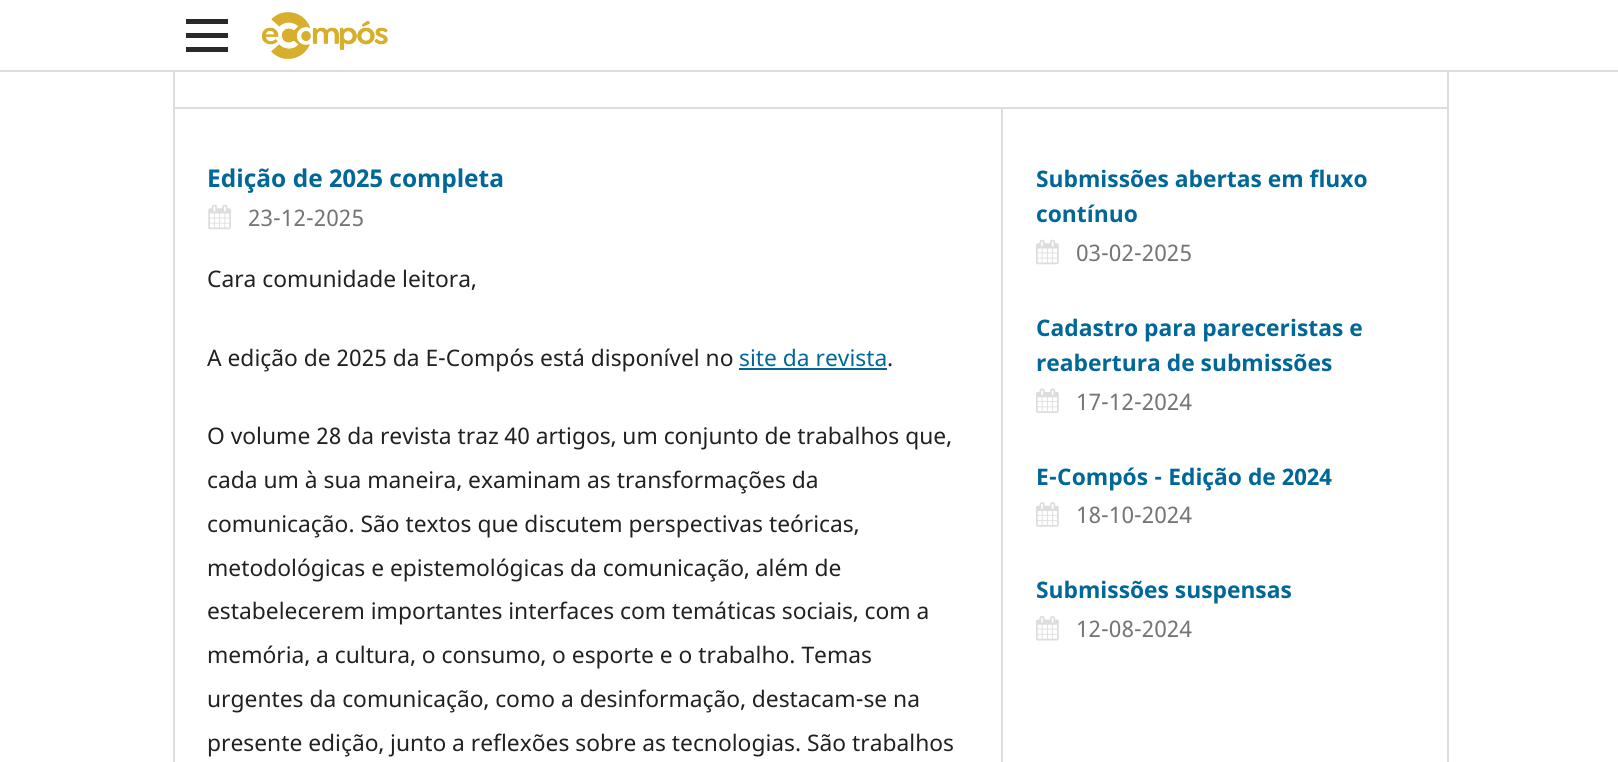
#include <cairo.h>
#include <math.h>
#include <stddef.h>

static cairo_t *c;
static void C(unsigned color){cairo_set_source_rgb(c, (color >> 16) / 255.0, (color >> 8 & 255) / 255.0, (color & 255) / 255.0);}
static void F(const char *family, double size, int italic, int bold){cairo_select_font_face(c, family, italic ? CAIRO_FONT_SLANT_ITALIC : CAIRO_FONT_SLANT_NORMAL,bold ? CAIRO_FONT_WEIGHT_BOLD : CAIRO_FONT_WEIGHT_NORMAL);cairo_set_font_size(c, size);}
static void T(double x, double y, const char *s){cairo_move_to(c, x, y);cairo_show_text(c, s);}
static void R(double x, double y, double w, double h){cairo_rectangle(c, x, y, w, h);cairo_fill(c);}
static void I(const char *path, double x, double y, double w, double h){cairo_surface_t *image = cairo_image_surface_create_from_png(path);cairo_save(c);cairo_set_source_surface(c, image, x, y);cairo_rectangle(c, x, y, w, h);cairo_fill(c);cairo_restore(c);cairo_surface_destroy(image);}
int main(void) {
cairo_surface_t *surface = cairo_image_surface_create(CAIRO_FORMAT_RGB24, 1618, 762);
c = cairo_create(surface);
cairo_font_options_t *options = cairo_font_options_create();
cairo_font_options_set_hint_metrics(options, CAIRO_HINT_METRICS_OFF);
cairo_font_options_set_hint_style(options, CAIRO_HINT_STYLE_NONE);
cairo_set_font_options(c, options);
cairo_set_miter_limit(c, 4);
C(0xffffff);
cairo_paint(c);
C(0xdddddd);
R(0,70,1618,2);
C(0x292929);
R(186,47,42,5);
R(186,19,42,5);
R(186,33,42,5);
I("1.png",261,12,127,47);
C(0xdddddd);
R(173,107,1274,2);
R(173,72,2,690);
F("Noto Sans",24.5,0,1);
C(0x006798);
T(207,187,"Edição de 2025 completa");
C(0xdddddd);
R(1001,109,2,653);
I("2.png",208,204,23,26);
F("Noto Sans",22.8,0,0);
C(0x757575);
T(248,226,"23-12-2025");
C(0x212121);
T(207,287,"Cara comunidade leitora,");
T(207,366,"A edição de 2025 da E-Compós está disponível no");
C(0x006798);
T(739,366,"site da revista");
R(739,368,148,2);
C(0x212121);
T(887,366,".");
T(207,444,"O volume 28 da revista traz 40 artigos, um conjunto de trabalhos que,");
T(207,488,"cada um à sua maneira, examinam as transformações da");
T(207,532,"comunicação. São textos que discutem perspectivas teóricas,");
T(207,576,"metodológicas e epistemológicas da comunicação, além de");
T(207,619,"estabelecerem importantes interfaces com temáticas sociais, com a");
T(207,663,"memória, a cultura, o consumo, o esporte e o trabalho. Temas");
T(207,707,"urgentes da comunicação, como a desinformação, destacam-se na");
T(207,751,"presente edição, junto a reflexões sobre as tecnologias. São trabalhos");
F("Noto Sans",22.8,0,1);
C(0x006798);
T(1036,187,"Submissões abertas em fluxo");
T(1036,222,"contínuo");
I("3.png",1036,239,23,26);
F("Noto Sans",22.8,0,0);
C(0x757575);
T(1076,261,"03-02-2025");
F("Noto Sans",22.8,0,1);
C(0x006798);
T(1036,336,"Cadastro para pareceristas e");
T(1036,371,"reabertura de submissões");
I("4.png",1036,388,23,25);
F("Noto Sans",22.8,0,0);
C(0x757575);
T(1076,410,"17-12-2024");
F("Noto Sans",22.8,0,1);
C(0x006798);
T(1036,485,"E-Compós - Edição de 2024");
I("5.png",1036,502,23,25);
F("Noto Sans",22.8,0,0);
C(0x757575);
T(1076,523,"18-10-2024");
F("Noto Sans",22.8,0,1);
C(0x006798);
T(1036,598,"Submissões suspensas");
I("6.png",1036,616,23,25);
F("Noto Sans",22.8,0,0);
C(0x757575);
T(1076,637,"12-08-2024");
C(0xdddddd);
R(1447,72,2,690);
cairo_surface_write_to_png(surface, "o.png");
cairo_font_options_destroy(options);
cairo_destroy(c);
cairo_surface_destroy(surface);
return 0;
}
